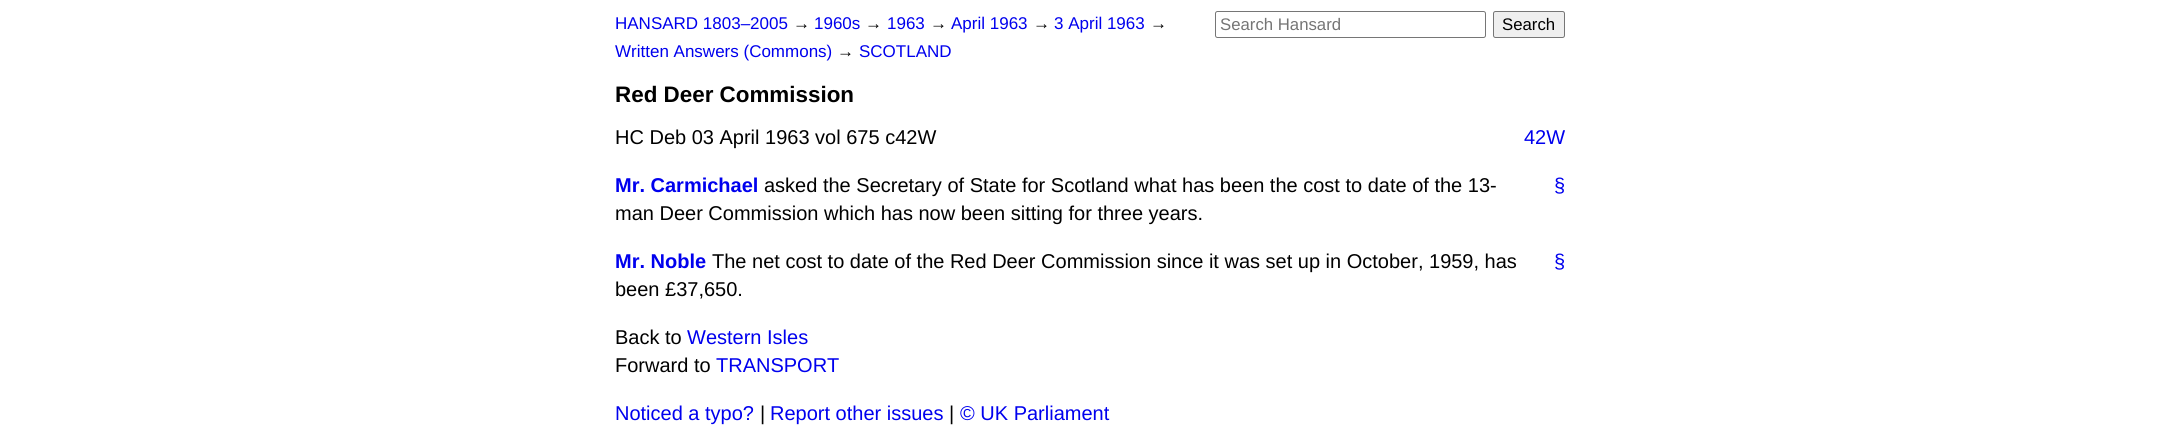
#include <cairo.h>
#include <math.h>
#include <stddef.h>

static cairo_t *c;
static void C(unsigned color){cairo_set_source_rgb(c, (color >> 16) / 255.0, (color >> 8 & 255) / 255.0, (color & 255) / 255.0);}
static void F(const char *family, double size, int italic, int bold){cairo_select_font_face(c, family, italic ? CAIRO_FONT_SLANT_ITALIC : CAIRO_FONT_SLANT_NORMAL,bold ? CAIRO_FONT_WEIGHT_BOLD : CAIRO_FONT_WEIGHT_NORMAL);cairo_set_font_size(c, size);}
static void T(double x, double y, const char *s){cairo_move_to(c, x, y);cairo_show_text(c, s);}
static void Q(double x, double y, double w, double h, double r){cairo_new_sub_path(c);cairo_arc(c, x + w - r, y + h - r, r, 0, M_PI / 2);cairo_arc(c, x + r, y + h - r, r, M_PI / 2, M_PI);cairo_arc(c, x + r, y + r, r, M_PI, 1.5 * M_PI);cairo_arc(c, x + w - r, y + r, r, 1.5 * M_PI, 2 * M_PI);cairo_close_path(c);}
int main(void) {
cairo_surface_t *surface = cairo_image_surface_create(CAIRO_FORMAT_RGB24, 2179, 446);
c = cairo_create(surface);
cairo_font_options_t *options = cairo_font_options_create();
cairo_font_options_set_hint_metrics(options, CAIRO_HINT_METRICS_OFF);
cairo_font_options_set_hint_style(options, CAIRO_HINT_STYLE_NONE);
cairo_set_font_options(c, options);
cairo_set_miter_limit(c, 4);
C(0xffffff);
cairo_paint(c);
F("Liberation Sans",17,0,0);
C(0x0000ee);
T(615,29,"HANSARD 1803–2005");
C(0x000000);
T(793,29,"→");
C(0x0000ee);
T(814,29,"1960s");
C(0x000000);
T(865,29,"→");
C(0x0000ee);
T(887,29,"1963");
C(0x000000);
T(930,29,"→");
C(0x0000ee);
T(951,29,"April 1963");
C(0x000000);
T(1033,29,"→");
C(0x0000ee);
T(1054,29,"3 April 1963");
C(0x000000);
T(1150,29,"→");
C(0x0000ee);
T(615,57,"Written Answers (Commons)");
C(0x000000);
T(837,57,"→");
C(0x0000ee);
T(859,57,"SCOTLAND");
Q(1215.5,11.5,270,26,2);
C(0x767676);
cairo_set_line_width(c,1);
cairo_stroke(c);
F("Liberation Sans",16.75,0,0);
C(0x757575);
T(1220,30,"Search Hansard");
C(0xefefef);
Q(1493.5,11.5,71,26,2);
cairo_fill_preserve(c);
C(0x767676);
cairo_stroke(c);
C(0x000000);
T(1502,30,"Search");
F("Liberation Sans",22.4,0,1);
T(615,102,"Red Deer Commission");
F("Liberation Sans",20,0,0);
T(615,144,"HC Deb 03 April 1963 vol 675 c42W");
C(0x0000ee);
T(1524,144,"42W");
F("Liberation Sans",20,0,1);
T(615,192,"Mr. Carmichael");
F("Liberation Sans",20,0,0);
C(0x000000);
T(764,192,"asked the Secretary of State for Scotland what has been the cost to date of the 13-");
C(0x0000ee);
T(1554,192,"§");
C(0x000000);
T(615,220,"man Deer Commission which has now been sitting for three years.");
F("Liberation Sans",20,0,1);
C(0x0000ee);
T(615,268,"Mr. Noble");
F("Liberation Sans",20,0,0);
C(0x000000);
T(712,268,"The net cost to date of the Red Deer Commission since it was set up in October, 1959, has");
C(0x0000ee);
T(1554,268,"§");
C(0x000000);
T(615,296,"been £37,650.");
T(615,344,"Back to");
C(0x0000ee);
T(687,344,"Western Isles");
C(0x000000);
T(615,372,"Forward to");
C(0x0000ee);
T(716,372,"TRANSPORT");
T(615,420,"Noticed a typo?");
C(0x000000);
T(760,420,"|");
C(0x0000ee);
T(770,420,"Report other issues");
C(0x000000);
T(949,420,"|");
C(0x0000ee);
T(960,420,"© UK Parliament");
cairo_surface_write_to_png(surface, "o.png");
cairo_font_options_destroy(options);
cairo_destroy(c);
cairo_surface_destroy(surface);
return 0;
}
